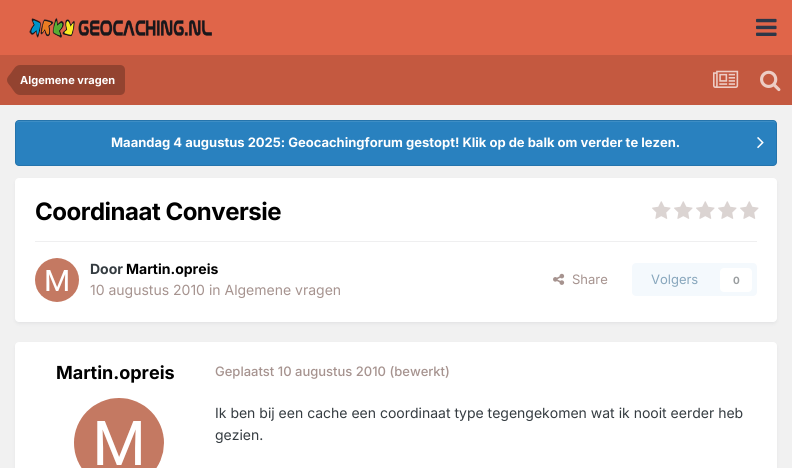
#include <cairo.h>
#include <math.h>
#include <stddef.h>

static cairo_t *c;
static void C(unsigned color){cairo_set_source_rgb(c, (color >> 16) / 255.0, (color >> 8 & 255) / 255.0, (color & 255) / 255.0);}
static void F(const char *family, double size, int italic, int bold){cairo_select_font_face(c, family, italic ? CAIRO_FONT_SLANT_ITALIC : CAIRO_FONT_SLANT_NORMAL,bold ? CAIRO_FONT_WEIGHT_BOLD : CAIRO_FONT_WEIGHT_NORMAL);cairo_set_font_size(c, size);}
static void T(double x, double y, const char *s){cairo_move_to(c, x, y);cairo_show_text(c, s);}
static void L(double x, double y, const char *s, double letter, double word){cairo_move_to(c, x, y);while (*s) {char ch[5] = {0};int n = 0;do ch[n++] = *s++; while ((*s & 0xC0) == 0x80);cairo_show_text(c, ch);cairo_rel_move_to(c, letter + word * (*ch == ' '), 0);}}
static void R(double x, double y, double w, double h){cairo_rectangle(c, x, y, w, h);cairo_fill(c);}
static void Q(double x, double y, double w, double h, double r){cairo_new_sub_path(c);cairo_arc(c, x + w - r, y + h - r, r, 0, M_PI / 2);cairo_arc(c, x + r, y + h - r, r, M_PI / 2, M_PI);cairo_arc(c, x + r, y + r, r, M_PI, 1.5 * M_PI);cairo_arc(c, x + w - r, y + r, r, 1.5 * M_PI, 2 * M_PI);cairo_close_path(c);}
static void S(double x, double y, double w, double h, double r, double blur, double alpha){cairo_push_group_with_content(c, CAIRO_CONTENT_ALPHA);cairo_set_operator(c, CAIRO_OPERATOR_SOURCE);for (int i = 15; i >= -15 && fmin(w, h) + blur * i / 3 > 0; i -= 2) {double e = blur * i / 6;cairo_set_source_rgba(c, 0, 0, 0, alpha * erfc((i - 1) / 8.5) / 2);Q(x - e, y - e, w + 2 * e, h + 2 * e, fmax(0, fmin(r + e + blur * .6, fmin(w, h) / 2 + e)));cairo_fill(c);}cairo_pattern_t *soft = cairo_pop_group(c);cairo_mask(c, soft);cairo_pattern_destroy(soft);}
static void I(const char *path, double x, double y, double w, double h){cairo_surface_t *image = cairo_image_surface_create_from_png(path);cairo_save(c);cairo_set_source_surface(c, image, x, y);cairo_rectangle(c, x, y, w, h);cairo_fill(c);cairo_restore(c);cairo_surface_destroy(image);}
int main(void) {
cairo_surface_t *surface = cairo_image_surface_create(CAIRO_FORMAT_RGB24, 792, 468);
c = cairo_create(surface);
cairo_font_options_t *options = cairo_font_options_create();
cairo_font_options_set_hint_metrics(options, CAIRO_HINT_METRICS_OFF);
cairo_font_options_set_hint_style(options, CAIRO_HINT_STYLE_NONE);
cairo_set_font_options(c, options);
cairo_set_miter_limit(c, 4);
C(0xf1f1f1);
cairo_paint(c);
C(0xe06549);
R(0,0,792,55);
I("1.png",29,17,183,21);
I("2.png",756,18,21,18);
C(0xc45940);
R(0,55,792,50);
C(0x934330);
cairo_new_path(c);
cairo_move_to(c,20,65);
cairo_line_to(c,120,65);
cairo_curve_to(c,123,65,125,67,125,70);
cairo_line_to(c,125,90);
cairo_curve_to(c,125,93,123,95,120,95);
cairo_line_to(c,20,95);
cairo_close_path(c);
cairo_fill(c);
cairo_new_path(c);
cairo_move_to(c,20,80);
cairo_line_to(c,20,95);
cairo_curve_to(c,15.5,95,13.5,90.5,11,87);
cairo_curve_to(c,9.5,85,7,83,7,80);
cairo_close_path(c);
cairo_move_to(c,20,80);
cairo_line_to(c,7,80);
cairo_curve_to(c,7,77,9.5,75,11,73);
cairo_curve_to(c,13.5,69.5,15.5,65,20,65);
cairo_close_path(c);
cairo_fill(c);
F("Inter",11,0,1);
C(0xffffff);
T(20,84,"Algemene vragen");
I("3.png",713,70,26,18);
I("4.png",760,70,21,22);
C(0x2981bf);
Q(15,120,762,46,4);
cairo_fill(c);
C(0x3e8ec5);
cairo_new_path(c);
cairo_move_to(c,19,122);
cairo_line_to(c,773,122);
cairo_curve_to(c,775,122,776,123,776,125);
cairo_curve_to(c,776,123,775,121,773,121);
cairo_line_to(c,19,121);
cairo_curve_to(c,17,121,16,123,16,125);
cairo_curve_to(c,16,123,17,122,19,122);
cairo_close_path(c);
cairo_fill(c);
Q(15.5,120.5,761,45,3.5);
cairo_set_source_rgba(c,0,0,0,0.1);
cairo_set_line_width(c,1);
cairo_stroke(c);
F("Inter",13,0,1);
C(0xffffff);
T(111,147,"Maandag 4 augustus 2025: Geocachingforum gestopt! Klik op de balk om verder te lezen.");
I("5.png",757,137,7,12);
C(0x2d3748);
S(16,181,760,142,3,2,.1);
C(0xffffff);
Q(15,178,762,144,4);
cairo_fill(c);
F("Inter",24,0,1);
C(0x000000);
L(35,220,"Coordinaat Conversie",-.5,0);
I("6.png",652,201,19,18);
I("6.png",674,201,19,18);
I("6.png",696,201,19,18);
I("6.png",718,201,19,18);
I("6.png",740,201,19,18);
C(0xefeff0);
R(35,241,722,1);
I("7.png",35,258,44,44);
F("Inter",14,0,1);
C(0x353c41);
T(90,274,"Door");
C(0x000000);
T(126,274,"Martin.opreis");
F("Inter",14,0,0);
C(0xa6938f);
T(90,295,"10 augustus 2010 in Algemene vragen");
I("8.png",553,273,12,12);
F("Inter",13,0,0);
T(572,284,"Share");
C(0xf4f9fd);
Q(632,263,125,33,4);
cairo_fill(c);
C(0x87a6bc);
T(651,284,"Volgers");
C(0xffffff);
Q(720,268,32,24,4);
cairo_fill(c);
F("Inter",10,0,1);
C(0x9a9ea0);
T(733,284,"0");
C(0x2d3748);
S(16,345,760,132,3,2,.1);
C(0xffffff);
Q(15,342,762,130,4);
cairo_fill(c);
F("Inter",18,0,1);
C(0x000000);
T(56,379,"Martin.opreis");
I("9.png",74,398,90,70);
F("Inter Medium",13,0,0);
C(0xa6938f);
T(215,376,"Geplaatst 10 augustus 2010 (bewerkt)");
F("Inter",14,0,0);
C(0x353c41);
T(215,418,"Ik ben bij een cache een coordinaat type tegengekomen wat ik nooit eerder heb");
T(215,440,"gezien.");
cairo_surface_write_to_png(surface, "o.png");
cairo_font_options_destroy(options);
cairo_destroy(c);
cairo_surface_destroy(surface);
return 0;
}
